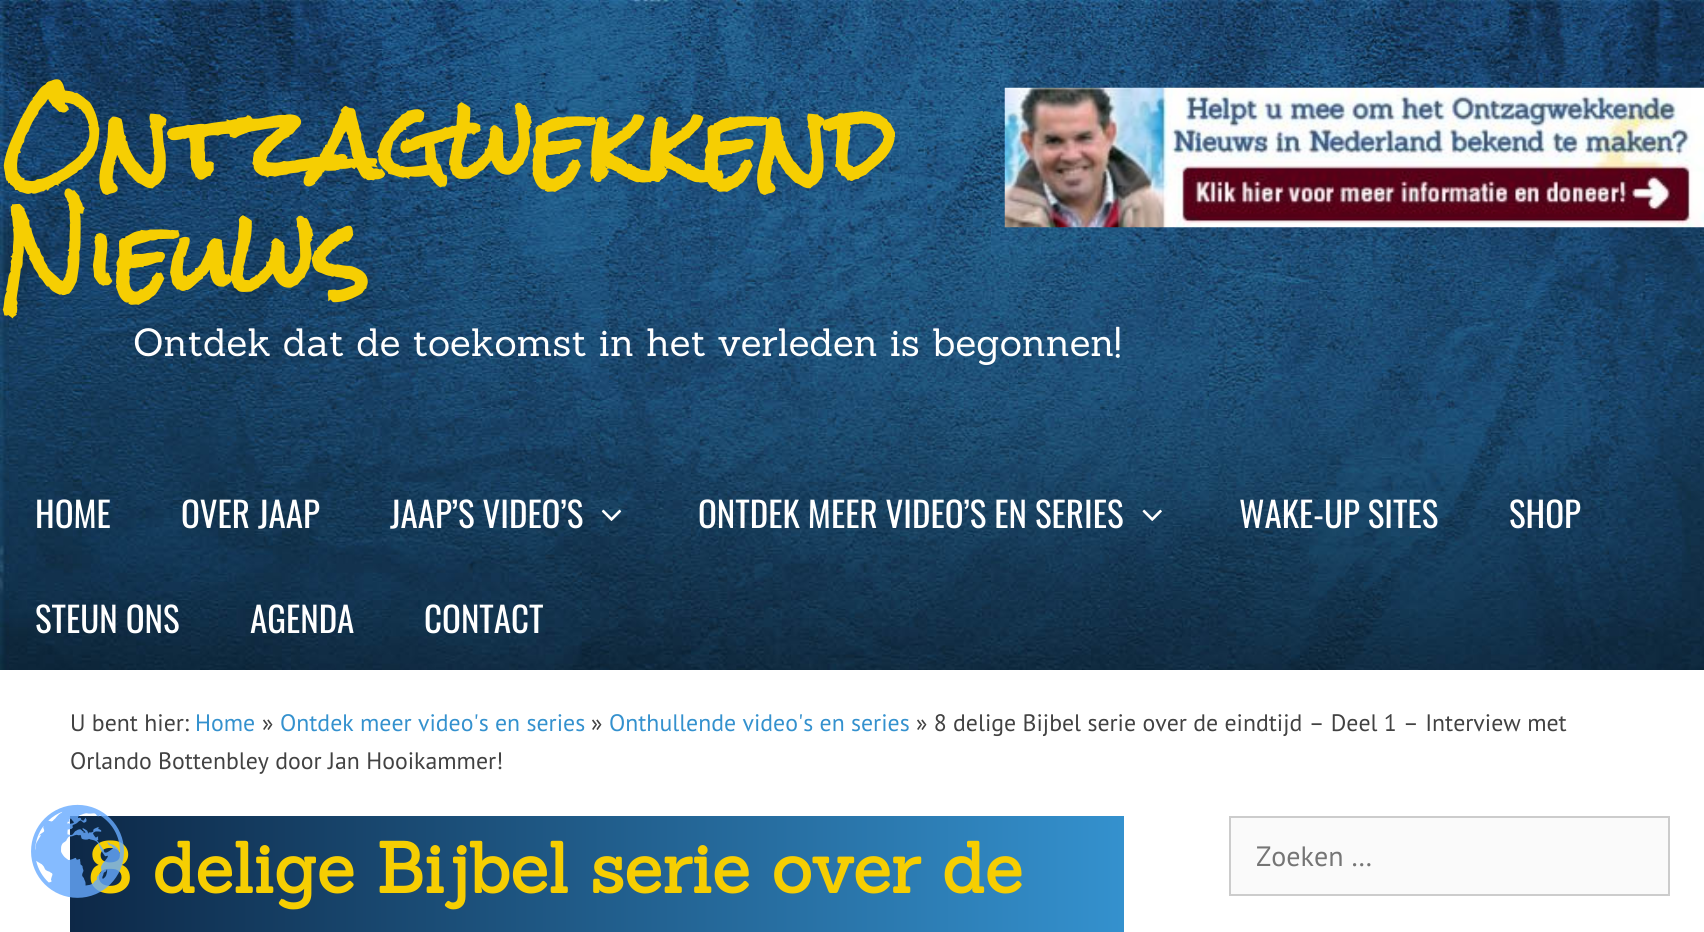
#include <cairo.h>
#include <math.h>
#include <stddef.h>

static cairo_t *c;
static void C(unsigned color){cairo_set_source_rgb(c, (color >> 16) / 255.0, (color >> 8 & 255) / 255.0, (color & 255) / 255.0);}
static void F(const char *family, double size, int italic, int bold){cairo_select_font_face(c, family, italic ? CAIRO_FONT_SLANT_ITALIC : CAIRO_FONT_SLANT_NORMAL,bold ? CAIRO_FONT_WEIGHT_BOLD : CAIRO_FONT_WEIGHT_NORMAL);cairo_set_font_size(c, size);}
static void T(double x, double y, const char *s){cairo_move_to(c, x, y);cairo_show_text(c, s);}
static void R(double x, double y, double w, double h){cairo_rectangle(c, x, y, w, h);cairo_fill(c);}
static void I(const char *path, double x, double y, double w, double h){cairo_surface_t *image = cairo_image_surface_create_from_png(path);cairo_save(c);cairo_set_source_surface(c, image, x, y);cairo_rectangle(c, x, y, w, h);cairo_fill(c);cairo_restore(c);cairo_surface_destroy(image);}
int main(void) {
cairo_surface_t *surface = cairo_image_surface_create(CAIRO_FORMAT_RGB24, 1704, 932);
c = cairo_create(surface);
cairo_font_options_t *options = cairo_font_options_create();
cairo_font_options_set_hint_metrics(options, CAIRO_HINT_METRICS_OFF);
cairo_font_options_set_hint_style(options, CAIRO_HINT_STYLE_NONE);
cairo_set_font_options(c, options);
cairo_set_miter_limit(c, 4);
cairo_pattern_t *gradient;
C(0xffffff);
cairo_paint(c);
I("1.png",0,0,1704,670);
F("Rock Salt",94.5,0,1);
C(0xf6ce02);
T(0,182,"Ontzagwekkend");
T(0,295,"Nieuws");
F("Sanchez",38.5,0,0);
C(0xffffff);
T(133,356,"Ontdek dat de toekomst in het verleden is begonnen!");
I("2.png",1004,87,700,141);
F("Oswald",35,0,0);
T(35,528,"HOME");
T(181,528,"OVER JAAP");
T(390,528,"JAAP’S VIDEO’S");
I("3.png",601,509,21,12);
T(698,528,"ONTDEK MEER VIDEO’S EN SERIES");
I("4.png",1142,509,20,12);
T(1239,528,"WAKE-UP SITES");
T(1509,528,"SHOP");
T(35,633,"STEUN ONS");
T(250,633,"AGENDA");
T(424,633,"CONTACT");
F("PT Sans",23.8,0,0);
C(0x424242);
T(70,731,"U bent hier:");
C(0x3491ce);
T(195,731,"Home");
C(0x424242);
T(262,731,"»");
C(0x3491ce);
T(280,731,"Ontdek meer video's en series");
C(0x424242);
T(591,731,"»");
C(0x3491ce);
T(609,731,"Onthullende video's en series");
C(0x424242);
T(916,731,"» 8 delige Bijbel serie over de eindtijd – Deel 1 – Interview met");
T(70,769,"Orlando Bottenbley door Jan Hooikammer!");
gradient = cairo_pattern_create_linear(70,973,1124,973);
cairo_pattern_add_color_stop_rgba(gradient,0,0.051,0.157,0.278,1);
cairo_pattern_add_color_stop_rgba(gradient,1,0.204,0.569,0.808,1);
cairo_set_source(c,gradient);
cairo_pattern_destroy(gradient);
R(70,816,1054,116);
F("Sanchez",70,0,1);
C(0xf6ce02);
T(88,893,"8 delige Bijbel serie over de");
C(0xfafafa);
cairo_rectangle(c,1230,817,439,78);
cairo_fill_preserve(c);
C(0xcccccc);
cairo_stroke(c);
F("PT Sans",28,0,0);
C(0x757575);
T(1256,866,"Zoeken …");
I("5.png",31,804,93,94);
cairo_surface_write_to_png(surface, "o.png");
cairo_font_options_destroy(options);
cairo_destroy(c);
cairo_surface_destroy(surface);
return 0;
}
